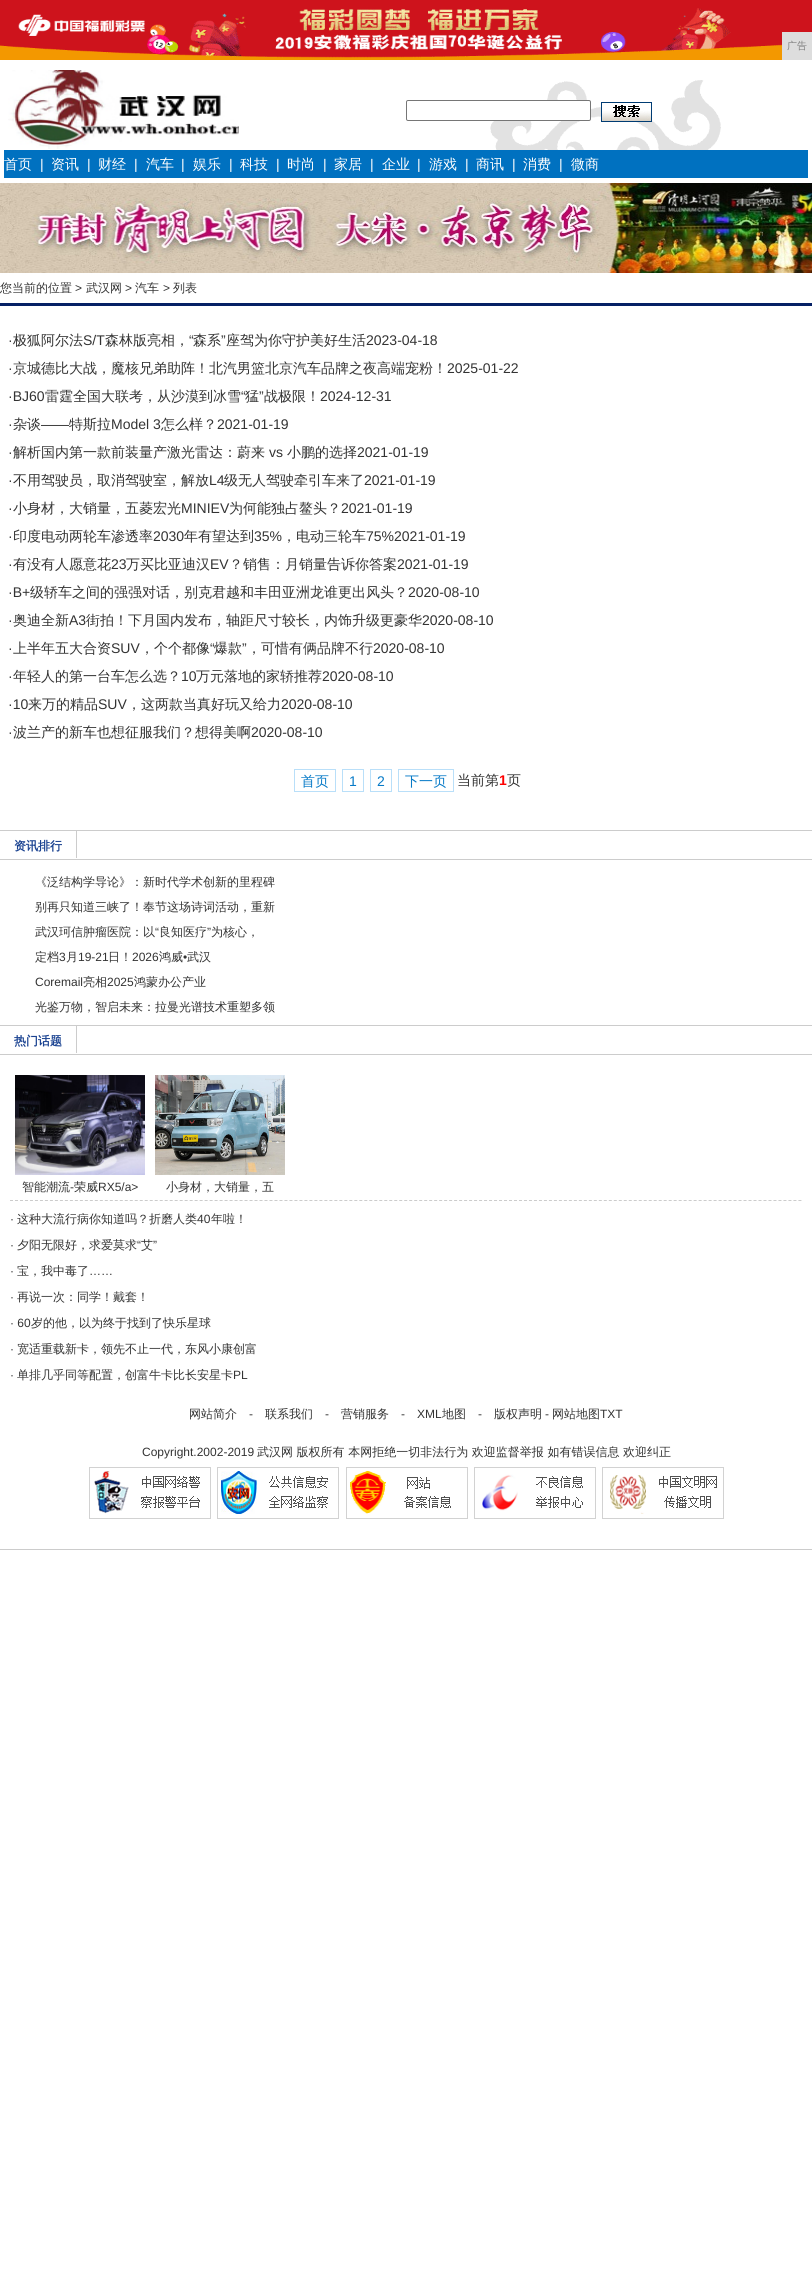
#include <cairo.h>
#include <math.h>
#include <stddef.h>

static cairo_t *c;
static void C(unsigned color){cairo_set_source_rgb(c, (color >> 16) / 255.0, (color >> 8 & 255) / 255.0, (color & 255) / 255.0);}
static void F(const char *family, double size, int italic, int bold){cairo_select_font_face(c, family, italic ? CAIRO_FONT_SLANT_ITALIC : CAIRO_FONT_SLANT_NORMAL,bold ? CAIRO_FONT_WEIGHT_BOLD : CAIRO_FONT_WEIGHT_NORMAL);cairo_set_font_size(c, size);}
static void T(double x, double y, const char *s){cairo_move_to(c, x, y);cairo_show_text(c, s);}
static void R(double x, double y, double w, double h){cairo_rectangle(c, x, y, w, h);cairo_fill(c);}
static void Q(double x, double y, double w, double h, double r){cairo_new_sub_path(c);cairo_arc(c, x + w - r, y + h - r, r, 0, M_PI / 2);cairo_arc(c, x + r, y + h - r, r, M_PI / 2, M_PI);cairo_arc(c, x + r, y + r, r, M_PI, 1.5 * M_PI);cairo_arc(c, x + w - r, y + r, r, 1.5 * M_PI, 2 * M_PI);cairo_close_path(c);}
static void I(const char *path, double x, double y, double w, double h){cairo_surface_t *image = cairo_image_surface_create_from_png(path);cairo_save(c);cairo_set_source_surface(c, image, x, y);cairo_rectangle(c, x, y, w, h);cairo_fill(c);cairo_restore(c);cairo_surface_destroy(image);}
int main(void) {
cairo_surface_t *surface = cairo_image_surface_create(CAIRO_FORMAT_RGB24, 812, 2294);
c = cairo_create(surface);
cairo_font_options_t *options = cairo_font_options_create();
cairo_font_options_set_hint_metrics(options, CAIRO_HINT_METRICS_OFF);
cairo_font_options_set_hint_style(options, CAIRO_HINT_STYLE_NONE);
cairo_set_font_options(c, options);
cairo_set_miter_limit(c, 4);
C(0xffffff);
cairo_paint(c);
I("1.png",0,0,812,60);
C(0xdddddd);
R(782,32,30,28);
F("WenQuanYi Zen Hei Medium",10,0,0);
C(0x808080);
T(787,49,"广告");
I("2.png",8,70,231,79);
I("3.png",490,80,231,70);
C(0xffffff);
Q(406.5,100.5,184,20,1.5);
cairo_fill_preserve(c);
C(0x767676);
cairo_set_line_width(c,1);
cairo_stroke(c);
I("4.png",601,102,51,20);
C(0x0071c0);
R(4,150,804,28);
F("WenQuanYi Zen Hei Medium",14,0,0);
C(0xffffff);
T(4,169,"首页");
F("Liberation Sans",14,0,0);
T(40,169,"|");
F("WenQuanYi Zen Hei Medium",14,0,0);
T(51,169,"资讯");
F("Liberation Sans",14,0,0);
T(87,169,"|");
F("WenQuanYi Zen Hei Medium",14,0,0);
T(98,169,"财经");
F("Liberation Sans",14,0,0);
T(134,169,"|");
F("WenQuanYi Zen Hei Medium",14,0,0);
T(146,169,"汽车");
F("Liberation Sans",14,0,0);
T(181,169,"|");
F("WenQuanYi Zen Hei Medium",14,0,0);
T(193,169,"娱乐");
F("Liberation Sans",14,0,0);
T(229,169,"|");
F("WenQuanYi Zen Hei Medium",14,0,0);
T(240,169,"科技");
F("Liberation Sans",14,0,0);
T(276,169,"|");
F("WenQuanYi Zen Hei Medium",14,0,0);
T(287,169,"时尚");
F("Liberation Sans",14,0,0);
T(323,169,"|");
F("WenQuanYi Zen Hei Medium",14,0,0);
T(334,169,"家居");
F("Liberation Sans",14,0,0);
T(370,169,"|");
F("WenQuanYi Zen Hei Medium",14,0,0);
T(382,169,"企业");
F("Liberation Sans",14,0,0);
T(417,169,"|");
F("WenQuanYi Zen Hei Medium",14,0,0);
T(429,169,"游戏");
F("Liberation Sans",14,0,0);
T(465,169,"|");
F("WenQuanYi Zen Hei Medium",14,0,0);
T(476,169,"商讯");
F("Liberation Sans",14,0,0);
T(512,169,"|");
F("WenQuanYi Zen Hei Medium",14,0,0);
T(523,169,"消费");
F("Liberation Sans",14,0,0);
T(559,169,"|");
F("WenQuanYi Zen Hei Medium",14,0,0);
T(571,169,"微商");
I("5.png",0,183,812,90);
F("WenQuanYi Zen Hei Medium",12,0,0);
C(0x333333);
T(0,292,"您当前的位置");
F("Liberation Sans",12,0,0);
T(75,292,">");
F("WenQuanYi Zen Hei Medium",12,0,0);
T(86,292,"武汉网");
F("Liberation Sans",12,0,0);
T(125,292,">");
F("WenQuanYi Zen Hei Medium",12,0,0);
T(135,292,"汽车");
F("Liberation Sans",12,0,0);
T(163,292,">");
F("WenQuanYi Zen Hei Medium",12,0,0);
T(173,292,"列表");
C(0x052065);
R(0,303,812,3);
C(0xcccccc);
R(0,1549,812,1);
F("Liberation Sans",14,0,0);
C(0x333333);
T(8,345,"·");
F("WenQuanYi Zen Hei Medium",14,0,0);
T(13,345,"极狐阿尔法");
F("Liberation Sans",14,0,0);
T(83,345,"S/T");
F("WenQuanYi Zen Hei Medium",14,0,0);
T(105,345,"森林版亮相，");
F("Liberation Sans",14,0,0);
T(189,345,"“");
F("WenQuanYi Zen Hei Medium",14,0,0);
T(193,345,"森系");
F("Liberation Sans",14,0,0);
T(221,345,"”");
F("WenQuanYi Zen Hei Medium",14,0,0);
T(226,345,"座驾为你守护美好生活");
F("Liberation Sans",14,0,0);
T(366,345,"2023-04-18");
T(8,373,"·");
F("WenQuanYi Zen Hei Medium",14,0,0);
T(13,373,"京城德比大战，魔核兄弟助阵！北汽男篮北京汽车品牌之夜高端宠粉！");
F("Liberation Sans",14,0,0);
T(447,373,"2025-01-22");
T(8,401,"·BJ60");
F("WenQuanYi Zen Hei Medium",14,0,0);
T(45,401,"雷霆全国大联考，从沙漠到冰雪");
F("Liberation Sans",14,0,0);
T(241,401,"“");
F("WenQuanYi Zen Hei Medium",14,0,0);
T(245,401,"猛");
F("Liberation Sans",14,0,0);
T(259,401,"”");
F("WenQuanYi Zen Hei Medium",14,0,0);
T(264,401,"战极限！");
F("Liberation Sans",14,0,0);
T(320,401,"2024-12-31");
T(8,429,"·");
F("WenQuanYi Zen Hei Medium",14,0,0);
T(13,429,"杂谈");
F("Liberation Sans",14,0,0);
T(41,429,"——");
F("WenQuanYi Zen Hei Medium",14,0,0);
T(69,429,"特斯拉");
F("Liberation Sans",14,0,0);
T(111,429,"Model 3");
F("WenQuanYi Zen Hei Medium",14,0,0);
T(161,429,"怎么样？");
F("Liberation Sans",14,0,0);
T(217,429,"2021-01-19");
T(8,457,"·");
F("WenQuanYi Zen Hei Medium",14,0,0);
T(13,457,"解析国内第一款前装量产激光雷达：蔚来");
F("Liberation Sans",14,0,0);
T(269,457,"vs");
F("WenQuanYi Zen Hei Medium",14,0,0);
T(287,457,"小鹏的选择");
F("Liberation Sans",14,0,0);
T(357,457,"2021-01-19");
T(8,485,"·");
F("WenQuanYi Zen Hei Medium",14,0,0);
T(13,485,"不用驾驶员，取消驾驶室，解放");
F("Liberation Sans",14,0,0);
T(209,485,"L4");
F("WenQuanYi Zen Hei Medium",14,0,0);
T(224,485,"级无人驾驶牵引车来了");
F("Liberation Sans",14,0,0);
T(364,485,"2021-01-19");
T(8,513,"·");
F("WenQuanYi Zen Hei Medium",14,0,0);
T(13,513,"小身材，大销量，五菱宏光");
F("Liberation Sans",14,0,0);
T(181,513,"MINIEV");
F("WenQuanYi Zen Hei Medium",14,0,0);
T(229,513,"为何能独占鳌头？");
F("Liberation Sans",14,0,0);
T(341,513,"2021-01-19");
T(8,541,"·");
F("WenQuanYi Zen Hei Medium",14,0,0);
T(13,541,"印度电动两轮车渗透率");
F("Liberation Sans",14,0,0);
T(153,541,"2030");
F("WenQuanYi Zen Hei Medium",14,0,0);
T(184,541,"年有望达到");
F("Liberation Sans",14,0,0);
T(254,541,"35%");
F("WenQuanYi Zen Hei Medium",14,0,0);
T(282,541,"，电动三轮车");
F("Liberation Sans",14,0,0);
T(366,541,"75%2021-01-19");
T(8,569,"·");
F("WenQuanYi Zen Hei Medium",14,0,0);
T(13,569,"有没有人愿意花");
F("Liberation Sans",14,0,0);
T(111,569,"23");
F("WenQuanYi Zen Hei Medium",14,0,0);
T(126,569,"万买比亚迪汉");
F("Liberation Sans",14,0,0);
T(210,569,"EV");
F("WenQuanYi Zen Hei Medium",14,0,0);
T(229,569,"？销售：月销量告诉你答案");
F("Liberation Sans",14,0,0);
T(397,569,"2021-01-19");
T(8,597,"·B+");
F("WenQuanYi Zen Hei Medium",14,0,0);
T(30,597,"级轿车之间的强强对话，别克君越和丰田亚洲龙谁更出风头？");
F("Liberation Sans",14,0,0);
T(408,597,"2020-08-10");
T(8,625,"·");
F("WenQuanYi Zen Hei Medium",14,0,0);
T(13,625,"奥迪全新");
F("Liberation Sans",14,0,0);
T(69,625,"A3");
F("WenQuanYi Zen Hei Medium",14,0,0);
T(86,625,"街拍！下月国内发布，轴距尺寸较长，内饰升级更豪华");
F("Liberation Sans",14,0,0);
T(422,625,"2020-08-10");
T(8,653,"·");
F("WenQuanYi Zen Hei Medium",14,0,0);
T(13,653,"上半年五大合资");
F("Liberation Sans",14,0,0);
T(111,653,"SUV");
F("WenQuanYi Zen Hei Medium",14,0,0);
T(140,653,"，个个都像");
F("Liberation Sans",14,0,0);
T(210,653,"“");
F("WenQuanYi Zen Hei Medium",14,0,0);
T(214,653,"爆款");
F("Liberation Sans",14,0,0);
T(242,653,"”");
F("WenQuanYi Zen Hei Medium",14,0,0);
T(247,653,"，可惜有俩品牌不行");
F("Liberation Sans",14,0,0);
T(373,653,"2020-08-10");
T(8,681,"·");
F("WenQuanYi Zen Hei Medium",14,0,0);
T(13,681,"年轻人的第一台车怎么选？");
F("Liberation Sans",14,0,0);
T(181,681,"10");
F("WenQuanYi Zen Hei Medium",14,0,0);
T(196,681,"万元落地的家轿推荐");
F("Liberation Sans",14,0,0);
T(322,681,"2020-08-10");
T(8,709,"·10");
F("WenQuanYi Zen Hei Medium",14,0,0);
T(28,709,"来万的精品");
F("Liberation Sans",14,0,0);
T(98,709,"SUV");
F("WenQuanYi Zen Hei Medium",14,0,0);
T(127,709,"，这两款当真好玩又给力");
F("Liberation Sans",14,0,0);
T(281,709,"2020-08-10");
T(8,737,"·");
F("WenQuanYi Zen Hei Medium",14,0,0);
T(13,737,"波兰产的新车也想征服我们？想得美啊");
F("Liberation Sans",14,0,0);
T(251,737,"2020-08-10");
cairo_rectangle(c,294.5,769.5,41,22);
C(0xb9dff9);
cairo_stroke(c);
F("WenQuanYi Zen Hei Medium",14,0,0);
C(0x077ac7);
T(301,786,"首页");
cairo_rectangle(c,342.5,769.5,21,22);
C(0xb9dff9);
cairo_stroke(c);
F("Liberation Sans",14,0,0);
C(0x077ac7);
T(349,786,"1");
cairo_rectangle(c,370.5,769.5,21,22);
C(0xb9dff9);
cairo_stroke(c);
C(0x077ac7);
T(377,786,"2");
cairo_rectangle(c,398.5,769.5,55,22);
C(0xb9dff9);
cairo_stroke(c);
F("WenQuanYi Zen Hei Medium",14,0,0);
C(0x077ac7);
T(405,786,"下一页");
C(0x333333);
T(457,785,"当前第");
F("Liberation Sans",14,0,1);
C(0xff0000);
T(499,785,"1");
F("WenQuanYi Zen Hei Medium",14,0,0);
C(0x333333);
T(507,785,"页");
C(0xcccccc);
R(0,830,812,1);
R(0,859,812,1);
R(76,831,1,27);
F("WenQuanYi Zen Hei",12,0,1);
C(0x1b4391);
T(14,850,"资讯排行");
F("WenQuanYi Zen Hei Medium",12,0,0);
C(0x333333);
T(35,886,"《泛结构学导论》：新时代学术创新的里程碑");
T(35,911,"别再只知道三峡了！奉节这场诗词活动，重新");
T(35,936,"武汉珂信肿瘤医院：以");
F("Liberation Sans",12,0,0);
T(155,936,"“");
F("WenQuanYi Zen Hei Medium",12,0,0);
T(159,936,"良知医疗");
F("Liberation Sans",12,0,0);
T(207,936,"”");
F("WenQuanYi Zen Hei Medium",12,0,0);
T(211,936,"为核心，");
T(35,961,"定档");
F("Liberation Sans",12,0,0);
T(59,961,"3");
F("WenQuanYi Zen Hei Medium",12,0,0);
T(66,961,"月");
F("Liberation Sans",12,0,0);
T(78,961,"19-21");
F("WenQuanYi Zen Hei Medium",12,0,0);
T(108,961,"日！");
F("Liberation Sans",12,0,0);
T(132,961,"2026");
F("WenQuanYi Zen Hei Medium",12,0,0);
T(159,961,"鸿威");
F("Liberation Sans",12,0,0);
T(183,961,"•");
F("WenQuanYi Zen Hei Medium",12,0,0);
T(187,961,"武汉");
F("Liberation Sans",12,0,0);
T(35,986,"Coremail");
F("WenQuanYi Zen Hei Medium",12,0,0);
T(83,986,"亮相");
F("Liberation Sans",12,0,0);
T(107,986,"2025");
F("WenQuanYi Zen Hei Medium",12,0,0);
T(134,986,"鸿蒙办公产业");
T(35,1011,"光鉴万物，智启未来：拉曼光谱技术重塑多领");
C(0xcccccc);
R(0,1025,812,1);
R(0,1054,812,1);
R(76,1026,1,27);
F("WenQuanYi Zen Hei",12,0,1);
C(0x1b4391);
T(14,1045,"热门话题");
cairo_new_path(c);
cairo_move_to(c,10,1200.5);
cairo_line_to(c,802,1200.5);
C(0xcccccc);
cairo_set_dash(c,(double[]){3,1.99},2,0);
cairo_stroke(c);
I("6.png",15,1075,130,100);
F("WenQuanYi Zen Hei Medium",12,0,0);
C(0x333333);
T(22,1191,"智能潮流");
F("Liberation Sans",12,0,0);
T(70,1191,"-");
F("WenQuanYi Zen Hei Medium",12,0,0);
T(74,1191,"荣威");
F("Liberation Sans",12,0,0);
T(98,1191,"RX5/a>");
I("7.png",155,1075,130,100);
F("WenQuanYi Zen Hei Medium",12,0,0);
T(166,1191,"小身材，大销量，五");
F("Liberation Sans",12,0,0);
T(10,1223,"·");
F("WenQuanYi Zen Hei Medium",12,0,0);
T(17,1223,"这种大流行病你知道吗？折磨人类");
F("Liberation Sans",12,0,0);
T(197,1223,"40");
F("WenQuanYi Zen Hei Medium",12,0,0);
T(211,1223,"年啦！");
T(17,1249,"夕阳无限好，求爱莫求");
F("Liberation Sans",12,0,0);
T(137,1249,"“");
F("WenQuanYi Zen Hei Medium",12,0,0);
T(141,1249,"艾");
F("Liberation Sans",12,0,0);
T(153,1249,"”");
T(10,1249,"·");
T(10,1275,"·");
F("WenQuanYi Zen Hei Medium",12,0,0);
T(17,1275,"宝，我中毒了");
F("Liberation Sans",12,0,0);
T(89,1275,"……");
T(10,1301,"·");
F("WenQuanYi Zen Hei Medium",12,0,0);
T(17,1301,"再说一次：同学！戴套！");
F("Liberation Sans",12,0,0);
T(10,1327,"· 60");
F("WenQuanYi Zen Hei Medium",12,0,0);
T(31,1327,"岁的他，以为终于找到了快乐星球");
F("Liberation Sans",12,0,0);
T(10,1353,"·");
F("WenQuanYi Zen Hei Medium",12,0,0);
T(17,1353,"宽适重载新卡，领先不止一代，东风小康创富");
F("Liberation Sans",12,0,0);
T(10,1379,"·");
F("WenQuanYi Zen Hei Medium",12,0,0);
T(17,1379,"单排几乎同等配置，创富牛卡比长安星卡");
F("Liberation Sans",12,0,0);
T(233,1379,"PL");
F("WenQuanYi Zen Hei Medium",12,0,0);
T(189,1418,"网站简介");
F("Liberation Sans",12,0,0);
T(249,1418,"-");
F("WenQuanYi Zen Hei Medium",12,0,0);
T(265,1418,"联系我们");
F("Liberation Sans",12,0,0);
T(325,1418,"-");
F("WenQuanYi Zen Hei Medium",12,0,0);
T(341,1418,"营销服务");
F("Liberation Sans",12,0,0);
T(401,1418,"-");
T(417,1418,"XML");
F("WenQuanYi Zen Hei Medium",12,0,0);
T(442,1418,"地图");
F("Liberation Sans",12,0,0);
T(478,1418,"-");
F("WenQuanYi Zen Hei Medium",12,0,0);
T(494,1418,"版权声明");
F("Liberation Sans",12,0,0);
T(545,1418,"-");
F("WenQuanYi Zen Hei Medium",12,0,0);
T(552,1418,"网站地图");
F("Liberation Sans",12,0,0);
T(600,1418,"TXT");
T(142,1456,"Copyright.2002-2019");
F("WenQuanYi Zen Hei Medium",12,0,0);
T(257,1456,"武汉网 版权所有 本网拒绝一切非法行为 欢迎监督举报 如有错误信息 欢迎纠正");
I("8.png",89,1467,122,52);
I("9.png",217,1467,122,52);
I("10.png",346,1467,122,52);
I("11.png",474,1467,122,52);
I("12.png",602,1467,122,52);
cairo_surface_write_to_png(surface, "o.png");
cairo_font_options_destroy(options);
cairo_destroy(c);
cairo_surface_destroy(surface);
return 0;
}
